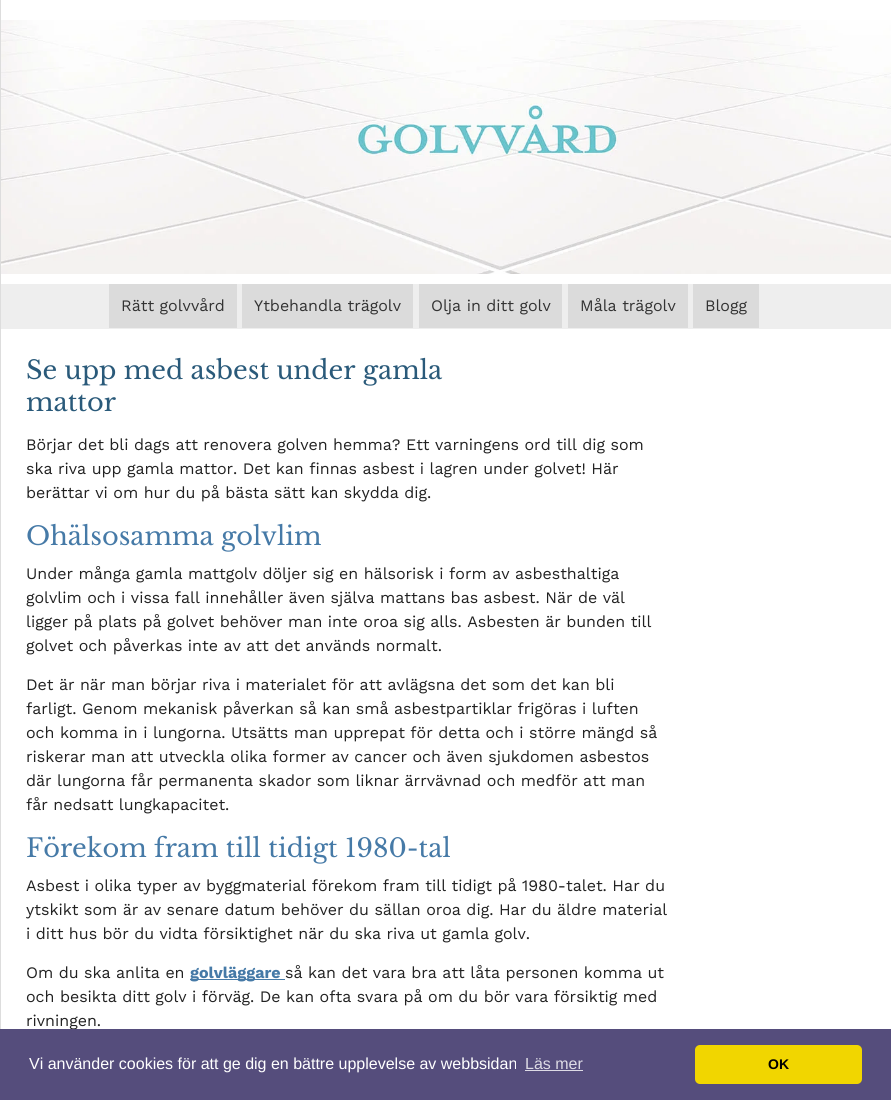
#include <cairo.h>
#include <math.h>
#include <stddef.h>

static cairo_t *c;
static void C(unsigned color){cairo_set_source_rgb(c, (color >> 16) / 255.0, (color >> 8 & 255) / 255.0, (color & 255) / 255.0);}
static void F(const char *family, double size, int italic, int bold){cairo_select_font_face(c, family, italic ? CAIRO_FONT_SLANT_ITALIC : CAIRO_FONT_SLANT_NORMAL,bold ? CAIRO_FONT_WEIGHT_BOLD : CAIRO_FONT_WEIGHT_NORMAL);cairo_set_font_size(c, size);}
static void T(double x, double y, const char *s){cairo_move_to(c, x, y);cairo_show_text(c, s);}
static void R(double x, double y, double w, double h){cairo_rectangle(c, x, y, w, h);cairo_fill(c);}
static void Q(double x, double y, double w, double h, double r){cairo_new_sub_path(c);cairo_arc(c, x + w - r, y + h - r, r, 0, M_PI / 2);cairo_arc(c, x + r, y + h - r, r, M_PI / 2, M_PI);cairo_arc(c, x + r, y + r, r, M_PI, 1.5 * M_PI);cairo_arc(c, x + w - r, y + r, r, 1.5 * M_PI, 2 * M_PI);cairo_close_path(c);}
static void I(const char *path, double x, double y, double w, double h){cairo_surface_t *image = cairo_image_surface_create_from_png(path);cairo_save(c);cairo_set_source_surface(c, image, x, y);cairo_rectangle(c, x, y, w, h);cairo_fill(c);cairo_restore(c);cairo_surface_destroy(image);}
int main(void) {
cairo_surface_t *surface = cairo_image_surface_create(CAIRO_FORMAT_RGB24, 891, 1100);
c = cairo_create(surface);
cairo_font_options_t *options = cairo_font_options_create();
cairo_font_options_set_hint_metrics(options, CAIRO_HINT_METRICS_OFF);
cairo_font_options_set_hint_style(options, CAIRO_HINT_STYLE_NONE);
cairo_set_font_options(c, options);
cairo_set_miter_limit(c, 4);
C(0xffffff);
cairo_paint(c);
C(0xdddddd);
R(0,0,1,284);
I("1.png",1,20,890,254);
C(0xeeeeee);
R(1,284,890,45);
C(0xdbdbdb);
R(109,284,128,44);
F("Work Sans",16,0,0);
C(0x333333);
T(121,311,"Rätt golvvård");
C(0xdbdbdb);
R(242,284,171,44);
C(0x333333);
T(254,311,"Ytbehandla trägolv");
C(0xdbdbdb);
R(419,284,143,44);
C(0x333333);
T(431,311,"Olja in ditt golv");
C(0xdbdbdb);
R(568,284,120,44);
C(0x333333);
T(580,311,"Måla trägolv");
C(0xdbdbdb);
R(693,284,66,44);
C(0x333333);
T(705,311,"Blogg");
C(0xdddddd);
R(0,284,1,745);
F("Libre Baskerville",25.6,0,0);
C(0x2a5a7a);
T(26,379,"Se upp med asbest under gamla");
T(26,411,"mattor");
F("Work Sans",16,0,0);
C(0x222222);
T(26,450,"Börjar det bli dags att renovera golven hemma? Ett varningens ord till dig som");
T(26,474,"ska riva upp gamla mattor. Det kan finnas asbest i lagren under golvet! Här");
T(26,498,"berättar vi om hur du på bästa sätt kan skydda dig.");
F("Libre Baskerville",25.6,0,0);
C(0x467aa7);
T(26,545,"Ohälsosamma golvlim");
F("Work Sans",16,0,0);
C(0x222222);
T(26,579,"Under många gamla mattgolv döljer sig en hälsorisk i form av asbesthaltiga");
T(26,603,"golvlim och i vissa fall innehåller även själva mattans bas asbest. När de väl");
T(26,627,"ligger på plats på golvet behöver man inte oroa sig alls. Asbesten är bunden till");
T(26,651,"golvet och påverkas inte av att det används normalt.");
T(26,690,"Det är när man börjar riva i materialet för att avlägsna det som det kan bli");
T(26,714,"farligt. Genom mekanisk påverkan så kan små asbestpartiklar frigöras i luften");
T(26,738,"och komma in i lungorna. Utsätts man upprepat för detta och i större mängd så");
T(26,762,"riskerar man att utveckla olika former av cancer och även sjukdomen asbestos");
T(26,786,"där lungorna får permanenta skador som liknar ärrvävnad och medför att man");
T(26,810,"får nedsatt lungkapacitet.");
F("Libre Baskerville",25.6,0,0);
C(0x467aa7);
T(26,857,"Förekom fram till tidigt 1980-tal");
F("Work Sans",16,0,0);
C(0x222222);
T(26,891,"Asbest i olika typer av byggmaterial förekom fram till tidigt på 1980-talet. Har du");
T(26,915,"ytskikt som är av senare datum behöver du sällan oroa dig. Har du äldre material");
T(26,939,"i ditt hus bör du vidta försiktighet när du ska riva ut gamla golv.");
T(26,978,"Om du ska anlita en");
C(0x467aa7);
R(190,979,95,1);
F("Work Sans",16,0,1);
T(190,978,"golvläggare");
F("Work Sans",16,0,0);
C(0x222222);
T(285,978,"så kan det vara bra att låta personen komma ut");
T(26,1002,"och besikta ditt golv i förväg. De kan ofta svara på om du bör vara försiktig med");
T(26,1026,"rivningen.");
C(0x554d7c);
R(0,1029,891,71);
F("Liberation Sans",16,0,0);
C(0xffffff);
T(29,1069,"Vi använder cookies för att ge dig en bättre upplevelse av webbsidan");
C(0xdddbe5);
T(525,1069,"Läs mer");
R(525,1070,58,1);
C(0xf1d600);
Q(695,1045,167,39,5);
cairo_fill(c);
F("Liberation Sans",14,0,1);
C(0x000000);
T(768,1069,"OK");
cairo_surface_write_to_png(surface, "o.png");
cairo_font_options_destroy(options);
cairo_destroy(c);
cairo_surface_destroy(surface);
return 0;
}
